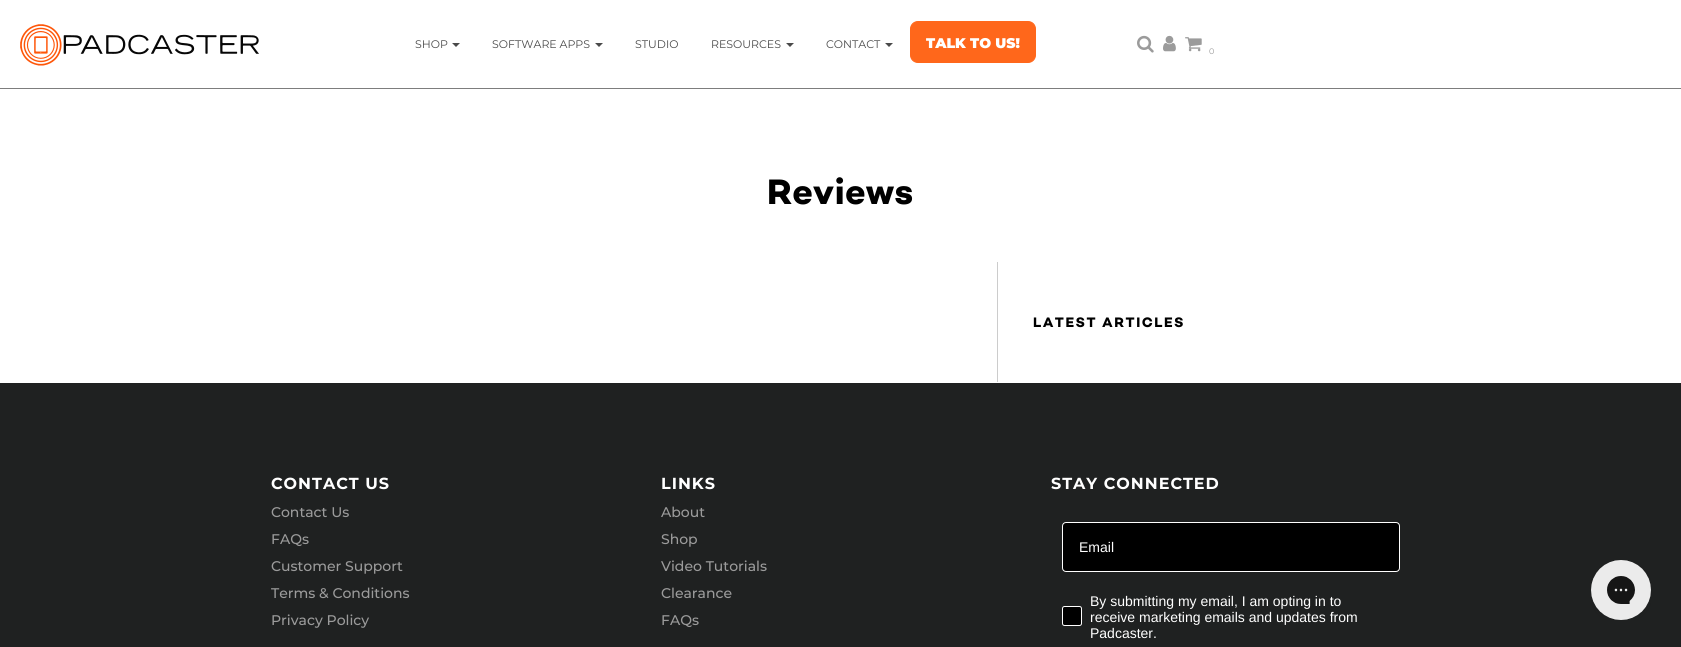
#include <cairo.h>
#include <math.h>
#include <stddef.h>

static cairo_t *c;
static void C(unsigned color){cairo_set_source_rgb(c, (color >> 16) / 255.0, (color >> 8 & 255) / 255.0, (color & 255) / 255.0);}
static void F(const char *family, double size, int italic, int bold){cairo_select_font_face(c, family, italic ? CAIRO_FONT_SLANT_ITALIC : CAIRO_FONT_SLANT_NORMAL,bold ? CAIRO_FONT_WEIGHT_BOLD : CAIRO_FONT_WEIGHT_NORMAL);cairo_set_font_size(c, size);}
static void T(double x, double y, const char *s){cairo_move_to(c, x, y);cairo_show_text(c, s);}
static void L(double x, double y, const char *s, double letter, double word){cairo_move_to(c, x, y);while (*s) {char ch[5] = {0};int n = 0;do ch[n++] = *s++; while ((*s & 0xC0) == 0x80);cairo_show_text(c, ch);cairo_rel_move_to(c, letter + word * (*ch == ' '), 0);}}
static void R(double x, double y, double w, double h){cairo_rectangle(c, x, y, w, h);cairo_fill(c);}
static void Q(double x, double y, double w, double h, double r){cairo_new_sub_path(c);cairo_arc(c, x + w - r, y + h - r, r, 0, M_PI / 2);cairo_arc(c, x + r, y + h - r, r, M_PI / 2, M_PI);cairo_arc(c, x + r, y + r, r, M_PI, 1.5 * M_PI);cairo_arc(c, x + w - r, y + r, r, 1.5 * M_PI, 2 * M_PI);cairo_close_path(c);}
static void I(const char *path, double x, double y, double w, double h){cairo_surface_t *image = cairo_image_surface_create_from_png(path);cairo_save(c);cairo_set_source_surface(c, image, x, y);cairo_rectangle(c, x, y, w, h);cairo_fill(c);cairo_restore(c);cairo_surface_destroy(image);}
int main(void) {
cairo_surface_t *surface = cairo_image_surface_create(CAIRO_FORMAT_RGB24, 1681, 647);
c = cairo_create(surface);
cairo_font_options_t *options = cairo_font_options_create();
cairo_font_options_set_hint_metrics(options, CAIRO_HINT_METRICS_OFF);
cairo_font_options_set_hint_style(options, CAIRO_HINT_STYLE_NONE);
cairo_set_font_options(c, options);
cairo_set_miter_limit(c, 4);
C(0xffffff);
cairo_paint(c);
C(0x7d7d7d);
R(0,88,1681,1);
I("1.png",20,24,239,42);
F("Montserrat",11,0,0);
C(0x4a4a4a);
T(415,48,"SHOP");
cairo_new_path(c);
cairo_move_to(c,452,43);
cairo_line_to(c,460,43);
cairo_line_to(c,456,47);
cairo_close_path(c);
cairo_fill(c);
T(492,48,"SOFTWARE APPS");
cairo_new_path(c);
cairo_move_to(c,595,43);
cairo_line_to(c,603,43);
cairo_line_to(c,599,47);
cairo_close_path(c);
cairo_fill(c);
T(635,48,"STUDIO");
T(711,48,"RESOURCES");
cairo_new_path(c);
cairo_move_to(c,786,43);
cairo_line_to(c,794,43);
cairo_line_to(c,790,47);
cairo_close_path(c);
cairo_fill(c);
T(826,48,"CONTACT");
cairo_new_path(c);
cairo_move_to(c,885,43);
cairo_line_to(c,893,43);
cairo_line_to(c,889,47);
cairo_close_path(c);
cairo_fill(c);
C(0xff671b);
Q(910.5,21.5,125,41,7.5);
cairo_fill_preserve(c);
cairo_set_line_width(c,1);
cairo_stroke(c);
F("Montserrat Black",14,0,0);
C(0xffffff);
T(926,48,"TALK TO US!");
I("2.png",1137,35,17,18);
I("3.png",1163,35,13,17);
I("4.png",1185,37,17,15);
F("Montserrat",8,0,0);
C(0x9b9b9b);
T(1209,54,"0");
F("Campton",36,0,1);
C(0x000000);
T(767,204,"Reviews");
C(0xcccccc);
R(997,262,1,120);
F("Campton",14,0,1);
C(0x000000);
L(1033,327,"LATEST ARTICLES",1.5,0);
C(0x1f2121);
R(0,383,1681,264);
F("Montserrat",16,0,1);
C(0xffffff);
L(271,489,"CONTACT US",1,0);
F("Montserrat Medium",14,0,0);
C(0x9b9b9b);
T(271,517,"Contact Us");
T(271,544,"FAQs");
T(271,571,"Customer Support");
T(271,598,"Terms & Conditions");
T(271,625,"Privacy Policy");
F("Montserrat",16,0,1);
C(0xffffff);
L(661,489,"LINKS",1,0);
F("Montserrat Medium",14,0,0);
C(0x9b9b9b);
T(661,517,"About");
T(661,544,"Shop");
T(661,571,"Video Tutorials");
T(661,598,"Clearance");
T(661,625,"FAQs");
F("Montserrat",16,0,1);
C(0xffffff);
L(1051,489,"STAY CONNECTED",1,0);
C(0x000000);
Q(1062.5,522.5,337,49,3.5);
cairo_fill_preserve(c);
C(0xffffff);
cairo_stroke(c);
F("Liberation Sans",14,0,0);
T(1079,552,"Email");
C(0x000000);
Q(1062.5,606.5,19,19,2);
cairo_fill_preserve(c);
C(0xffffff);
cairo_stroke(c);
T(1090,606,"By submitting my email, I am opting in to");
T(1090,622,"receive marketing emails and updates from");
T(1090,638,"Padcaster.");
I("5.png",1591,560,60,60);
cairo_surface_write_to_png(surface, "o.png");
cairo_font_options_destroy(options);
cairo_destroy(c);
cairo_surface_destroy(surface);
return 0;
}
